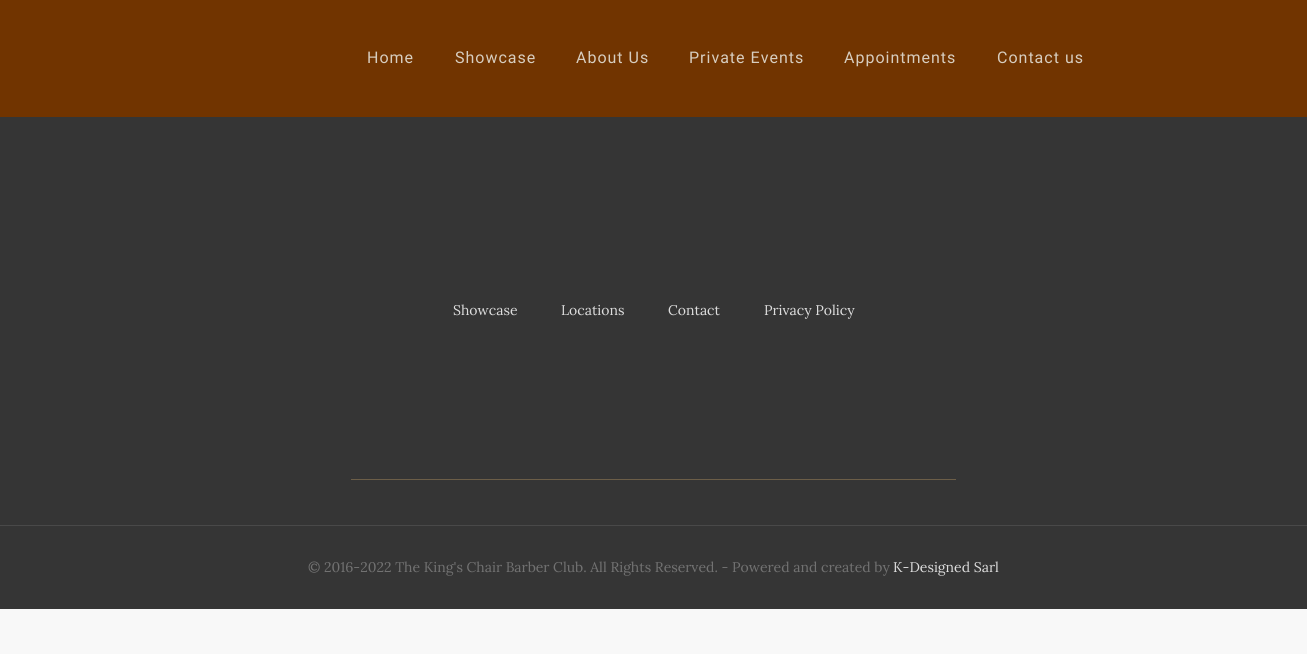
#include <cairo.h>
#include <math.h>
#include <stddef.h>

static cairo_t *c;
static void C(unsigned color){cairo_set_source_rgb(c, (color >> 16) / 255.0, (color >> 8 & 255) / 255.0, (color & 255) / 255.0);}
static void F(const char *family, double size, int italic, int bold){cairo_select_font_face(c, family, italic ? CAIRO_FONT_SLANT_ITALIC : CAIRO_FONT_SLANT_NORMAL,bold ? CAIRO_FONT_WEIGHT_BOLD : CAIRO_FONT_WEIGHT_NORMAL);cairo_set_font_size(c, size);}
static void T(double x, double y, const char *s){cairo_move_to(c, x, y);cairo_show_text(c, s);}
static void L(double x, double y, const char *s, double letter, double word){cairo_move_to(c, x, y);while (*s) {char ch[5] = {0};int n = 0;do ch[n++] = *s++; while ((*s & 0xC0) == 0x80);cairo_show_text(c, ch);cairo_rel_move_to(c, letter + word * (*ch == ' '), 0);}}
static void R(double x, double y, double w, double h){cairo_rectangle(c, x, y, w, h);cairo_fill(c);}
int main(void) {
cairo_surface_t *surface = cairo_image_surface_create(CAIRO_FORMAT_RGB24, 1307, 654);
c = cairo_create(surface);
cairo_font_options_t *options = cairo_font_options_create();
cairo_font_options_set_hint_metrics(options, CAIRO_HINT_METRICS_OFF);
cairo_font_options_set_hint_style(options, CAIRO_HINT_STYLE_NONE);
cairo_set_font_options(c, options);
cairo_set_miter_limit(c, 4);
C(0xf8f8f8);
cairo_paint(c);
C(0x713400);
R(0,0,1307,117);
F("Roboto",16,0,0);
C(0xd7cdbf);
L(367,63,"Home",1,0);
L(455,63,"Showcase",1,0);
L(576,63,"About Us",1,0);
L(689,63,"Private Events",1,0);
L(844,63,"Appointments",1,0);
L(997,63,"Contact us",1,0);
C(0x353535);
R(0,117,1307,492);
C(0x6c5e48);
R(351,479,605,1);
F("Lora",14,0,0);
C(0xdddddd);
T(453,315,"Showcase");
T(561,315,"Locations");
T(668,315,"Contact");
T(764,315,"Privacy Policy");
C(0x494949);
R(0,525,1307,1);
C(0x727272);
T(308,572,"© 2016-2022 The King's Chair Barber Club. All Rights Reserved. - Powered and created by");
C(0xdddddd);
T(893,572,"K-Designed Sarl");
cairo_surface_write_to_png(surface, "o.png");
cairo_font_options_destroy(options);
cairo_destroy(c);
cairo_surface_destroy(surface);
return 0;
}
